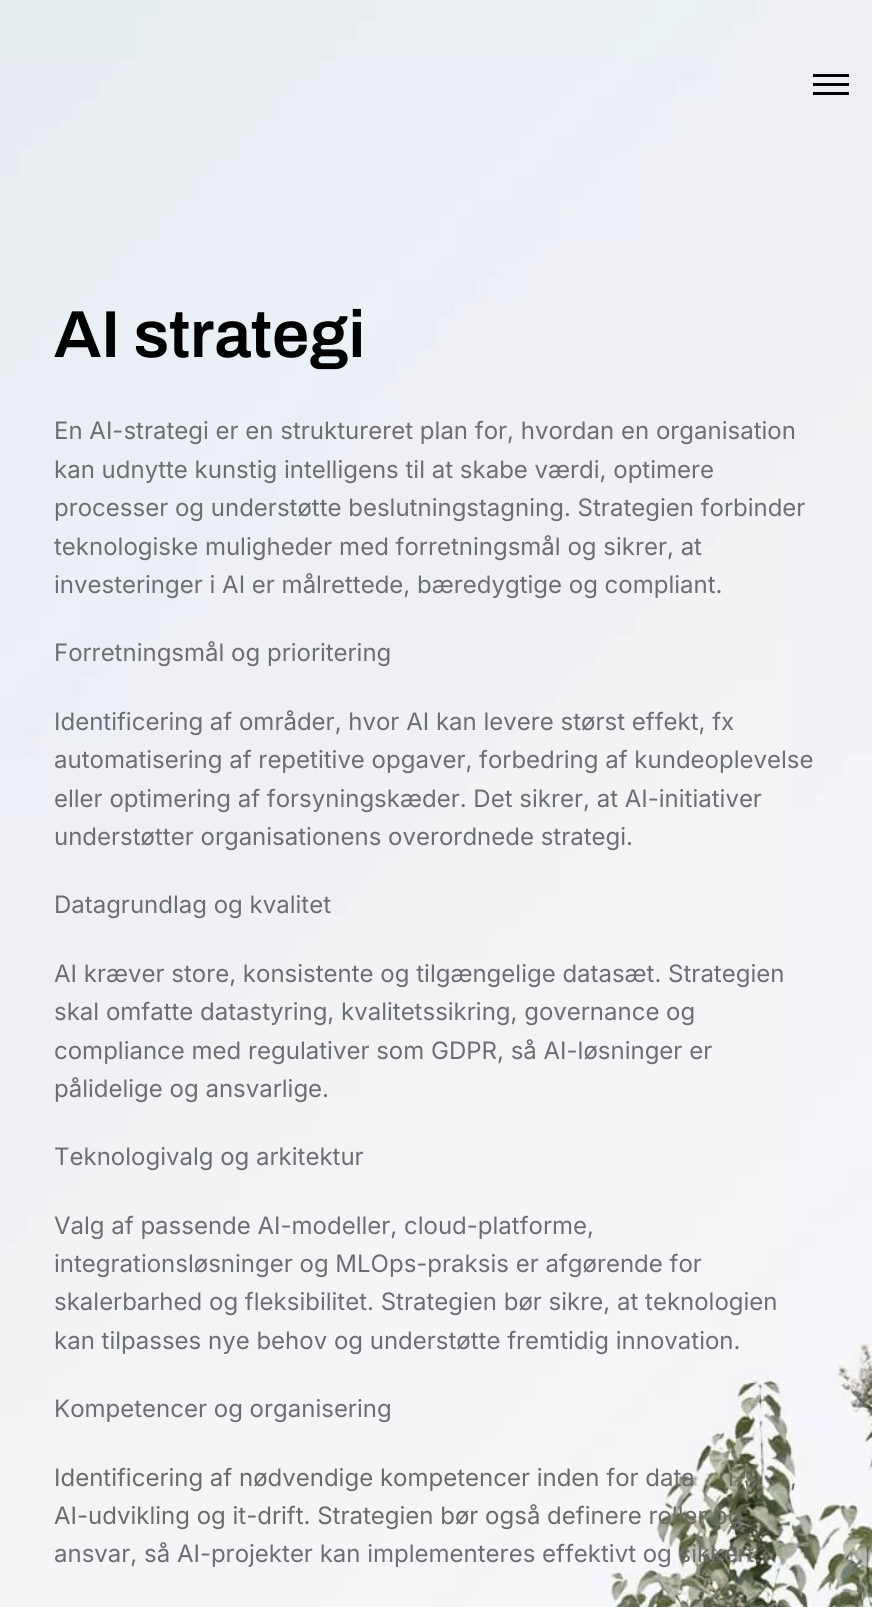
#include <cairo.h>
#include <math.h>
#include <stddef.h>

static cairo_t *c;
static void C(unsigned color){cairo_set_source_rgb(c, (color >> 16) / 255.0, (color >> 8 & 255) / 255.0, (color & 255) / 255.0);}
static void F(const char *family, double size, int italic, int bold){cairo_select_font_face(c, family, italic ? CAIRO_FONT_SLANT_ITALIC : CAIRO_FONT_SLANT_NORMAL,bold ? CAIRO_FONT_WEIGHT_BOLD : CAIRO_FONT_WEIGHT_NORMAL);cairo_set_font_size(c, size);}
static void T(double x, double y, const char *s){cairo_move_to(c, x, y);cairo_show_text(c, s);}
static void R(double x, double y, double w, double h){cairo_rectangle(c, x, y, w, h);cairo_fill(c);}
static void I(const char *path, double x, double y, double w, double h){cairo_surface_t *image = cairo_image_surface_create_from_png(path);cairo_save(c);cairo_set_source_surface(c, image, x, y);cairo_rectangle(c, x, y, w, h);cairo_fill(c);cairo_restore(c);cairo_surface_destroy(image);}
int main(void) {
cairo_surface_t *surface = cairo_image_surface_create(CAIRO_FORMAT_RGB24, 872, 1607);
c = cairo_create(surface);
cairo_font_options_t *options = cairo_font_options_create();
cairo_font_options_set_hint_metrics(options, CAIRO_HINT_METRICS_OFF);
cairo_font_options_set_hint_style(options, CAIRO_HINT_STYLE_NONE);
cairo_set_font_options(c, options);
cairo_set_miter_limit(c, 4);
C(0xffffff);
cairo_paint(c);
I("1.png",0,0,872,1607);
C(0x000000);
R(813,83,36,3);
R(813,74,36,3);
R(813,92,36,3);
F("Archivo SemiBold",66.5,0,0);
T(54,357,"AI strategi");
F("Inter",24,0,0);
C(0x6d6e71);
T(54,439,"En AI-strategi er en struktureret plan for, hvordan en organisation");
T(54,478,"kan udnytte kunstig intelligens til at skabe værdi, optimere");
T(54,516,"processer og understøtte beslutningstagning. Strategien forbinder");
T(54,555,"teknologiske muligheder med forretningsmål og sikrer, at");
T(54,593,"investeringer i AI er målrettede, bæredygtige og compliant.");
T(54,661,"Forretningsmål og prioritering");
T(54,730,"Identificering af områder, hvor AI kan levere størst effekt, fx");
T(54,768,"automatisering af repetitive opgaver, forbedring af kundeoplevelse");
T(54,807,"eller optimering af forsyningskæder. Det sikrer, at AI-initiativer");
T(54,845,"understøtter organisationens overordnede strategi.");
T(54,913,"Datagrundlag og kvalitet");
T(54,982,"AI kræver store, konsistente og tilgængelige datasæt. Strategien");
T(54,1020,"skal omfatte datastyring, kvalitetssikring, governance og");
T(54,1059,"compliance med regulativer som GDPR, så AI-løsninger er");
T(54,1097,"pålidelige og ansvarlige.");
T(54,1165,"Teknologivalg og arkitektur");
T(54,1234,"Valg af passende AI-modeller, cloud-platforme,");
T(54,1272,"integrationsløsninger og MLOps-praksis er afgørende for");
T(54,1310,"skalerbarhed og fleksibilitet. Strategien bør sikre, at teknologien");
T(54,1349,"kan tilpasses nye behov og understøtte fremtidig innovation.");
T(54,1417,"Kompetencer og organisering");
C(0x6a6b6a);
T(54,1486,"Identificering af nødvendige kompetencer inden for data");
T(728,1486,"i");
T(790,1486,",");
T(54,1524,"AI-udvikling og it-drift. Strategien bør også definere roller og");
C(0x6d6e71);
T(54,1562,"ansvar, så AI-projekter kan implementeres effektivt og sikkert.");
cairo_surface_write_to_png(surface, "o.png");
cairo_font_options_destroy(options);
cairo_destroy(c);
cairo_surface_destroy(surface);
return 0;
}
